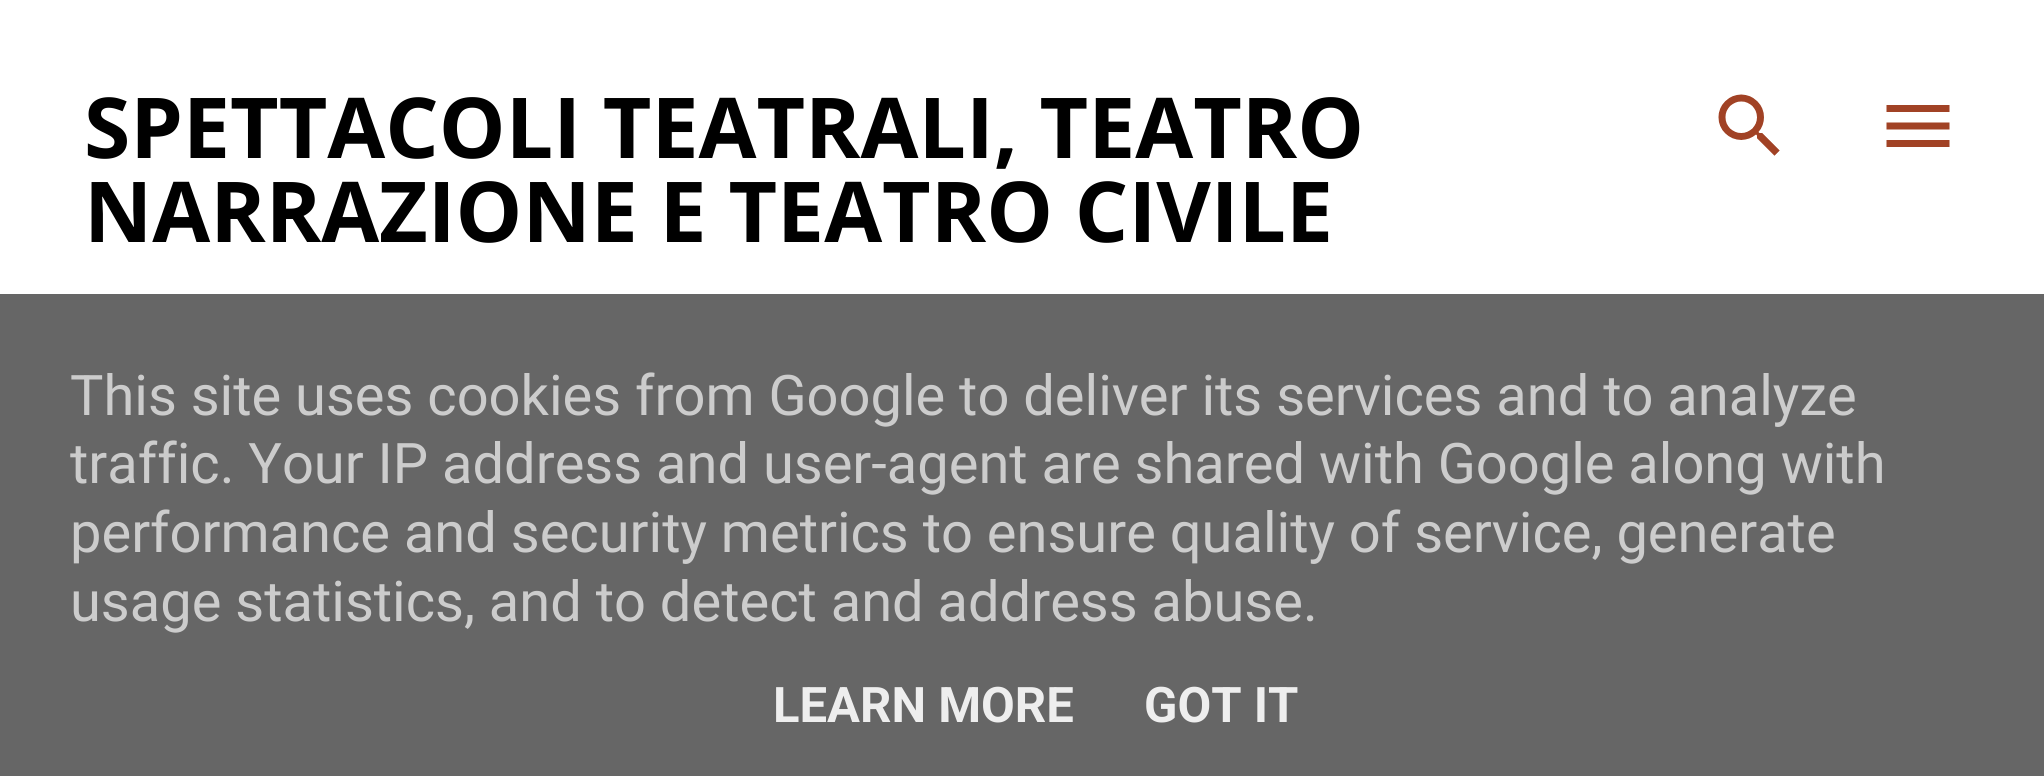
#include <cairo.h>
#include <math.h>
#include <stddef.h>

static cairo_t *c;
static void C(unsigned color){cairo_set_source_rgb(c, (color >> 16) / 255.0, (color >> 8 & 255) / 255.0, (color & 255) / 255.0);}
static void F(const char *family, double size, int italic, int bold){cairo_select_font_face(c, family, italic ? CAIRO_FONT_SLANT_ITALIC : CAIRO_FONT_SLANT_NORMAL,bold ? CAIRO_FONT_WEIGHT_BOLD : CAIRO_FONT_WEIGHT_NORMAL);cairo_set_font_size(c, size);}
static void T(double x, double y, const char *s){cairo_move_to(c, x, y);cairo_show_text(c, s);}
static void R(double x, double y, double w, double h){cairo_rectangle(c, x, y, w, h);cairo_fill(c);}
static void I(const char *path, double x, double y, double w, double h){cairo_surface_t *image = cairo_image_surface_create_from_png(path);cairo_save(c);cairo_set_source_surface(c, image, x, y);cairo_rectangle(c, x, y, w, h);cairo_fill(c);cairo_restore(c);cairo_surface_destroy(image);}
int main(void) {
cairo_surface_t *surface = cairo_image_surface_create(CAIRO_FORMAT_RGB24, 2044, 776);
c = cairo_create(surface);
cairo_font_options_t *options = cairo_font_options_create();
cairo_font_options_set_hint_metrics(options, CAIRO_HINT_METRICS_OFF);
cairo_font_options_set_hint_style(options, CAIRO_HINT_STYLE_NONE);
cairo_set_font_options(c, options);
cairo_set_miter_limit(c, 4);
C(0xffffff);
cairo_paint(c);
F("Open Sans",84,0,1);
C(0x000000);
T(84,158,"SPETTACOLI TEATRALI, TEATRO");
T(84,242,"NARRAZIONE E TEATRO CIVILE");
I("1.png",1718,94,62,62);
I("2.png",1886,105,64,42);
C(0x666666);
R(0,294,2044,482);
F("Roboto",56,0,0);
C(0xcccccc);
T(70,415,"This site uses cookies from Google to deliver its services and to analyze");
T(70,483,"traffic. Your IP address and user-agent are shared with Google along with");
T(70,552,"performance and security metrics to ensure quality of service, generate");
T(70,621,"usage statistics, and to detect and address abuse.");
F("Roboto",49,0,1);
C(0xeeeeee);
T(773,722,"LEARN MORE");
T(1144,722,"GOT IT");
cairo_surface_write_to_png(surface, "o.png");
cairo_font_options_destroy(options);
cairo_destroy(c);
cairo_surface_destroy(surface);
return 0;
}
